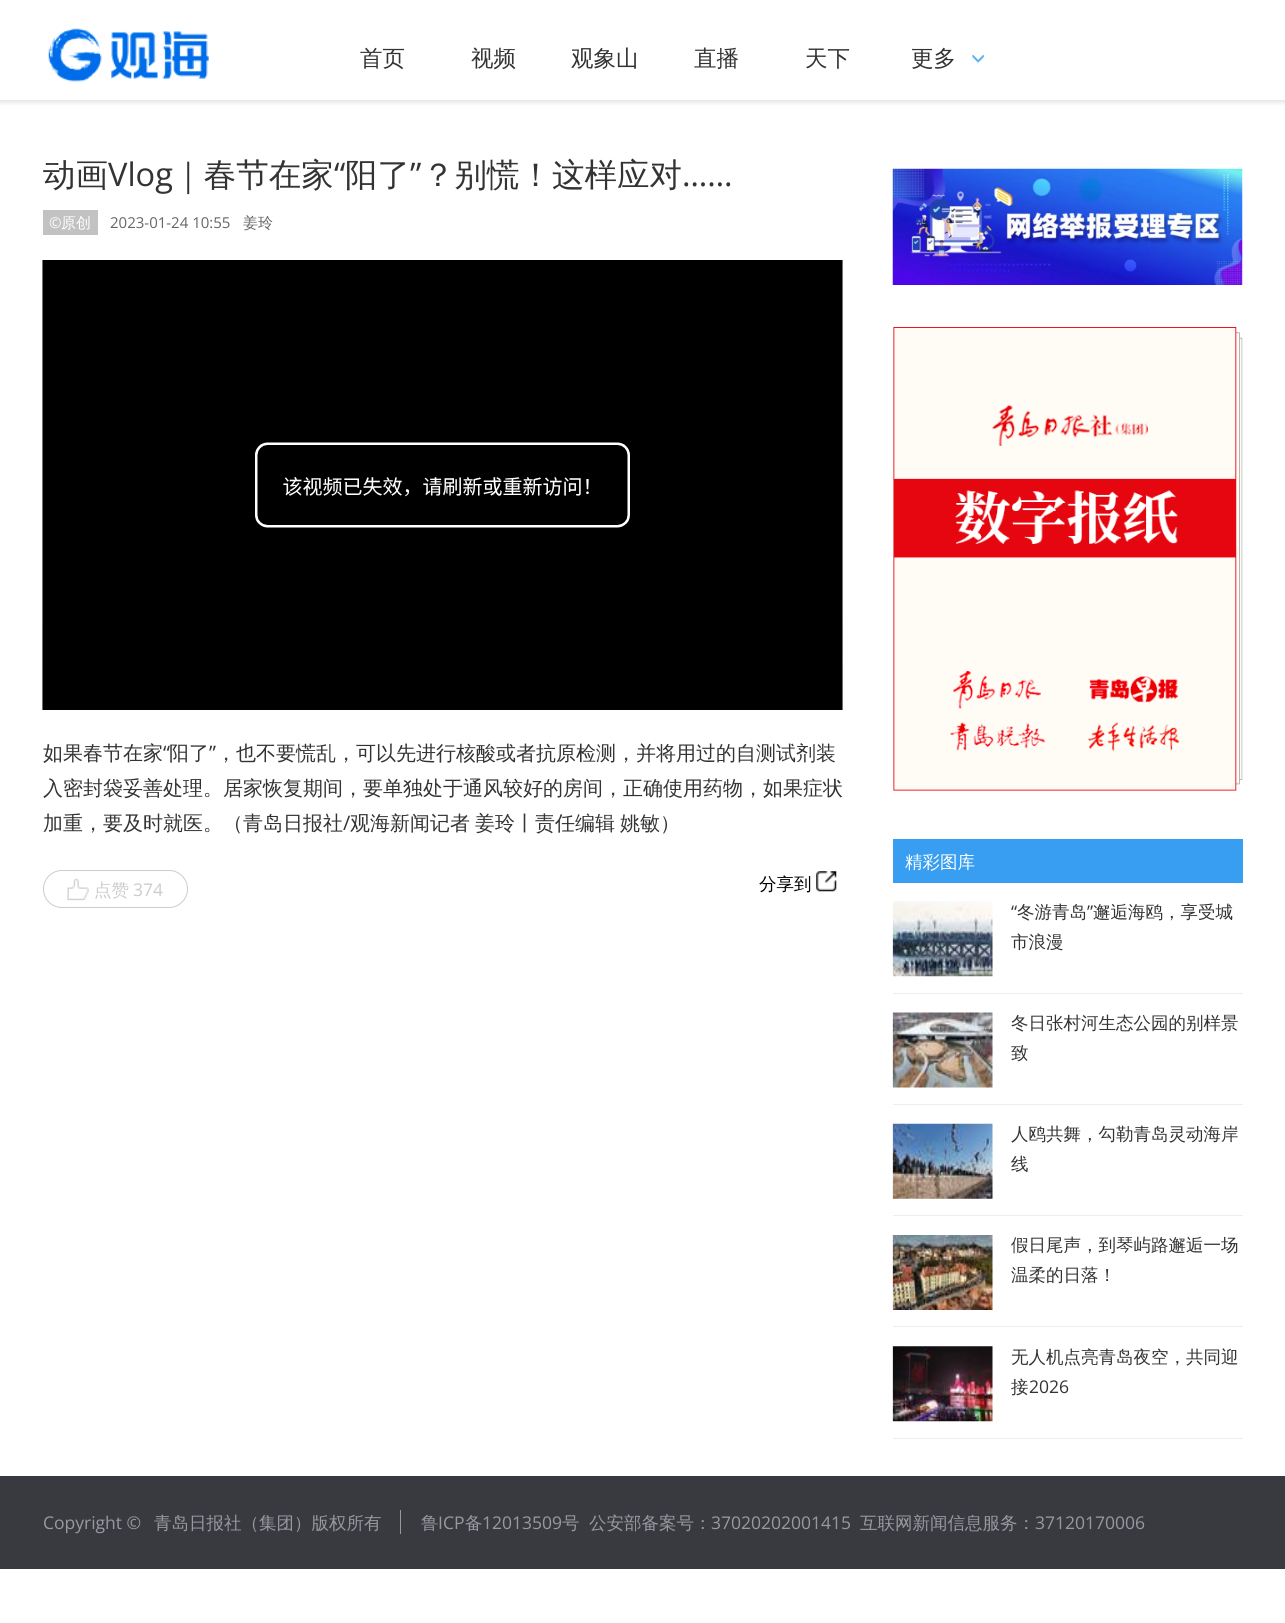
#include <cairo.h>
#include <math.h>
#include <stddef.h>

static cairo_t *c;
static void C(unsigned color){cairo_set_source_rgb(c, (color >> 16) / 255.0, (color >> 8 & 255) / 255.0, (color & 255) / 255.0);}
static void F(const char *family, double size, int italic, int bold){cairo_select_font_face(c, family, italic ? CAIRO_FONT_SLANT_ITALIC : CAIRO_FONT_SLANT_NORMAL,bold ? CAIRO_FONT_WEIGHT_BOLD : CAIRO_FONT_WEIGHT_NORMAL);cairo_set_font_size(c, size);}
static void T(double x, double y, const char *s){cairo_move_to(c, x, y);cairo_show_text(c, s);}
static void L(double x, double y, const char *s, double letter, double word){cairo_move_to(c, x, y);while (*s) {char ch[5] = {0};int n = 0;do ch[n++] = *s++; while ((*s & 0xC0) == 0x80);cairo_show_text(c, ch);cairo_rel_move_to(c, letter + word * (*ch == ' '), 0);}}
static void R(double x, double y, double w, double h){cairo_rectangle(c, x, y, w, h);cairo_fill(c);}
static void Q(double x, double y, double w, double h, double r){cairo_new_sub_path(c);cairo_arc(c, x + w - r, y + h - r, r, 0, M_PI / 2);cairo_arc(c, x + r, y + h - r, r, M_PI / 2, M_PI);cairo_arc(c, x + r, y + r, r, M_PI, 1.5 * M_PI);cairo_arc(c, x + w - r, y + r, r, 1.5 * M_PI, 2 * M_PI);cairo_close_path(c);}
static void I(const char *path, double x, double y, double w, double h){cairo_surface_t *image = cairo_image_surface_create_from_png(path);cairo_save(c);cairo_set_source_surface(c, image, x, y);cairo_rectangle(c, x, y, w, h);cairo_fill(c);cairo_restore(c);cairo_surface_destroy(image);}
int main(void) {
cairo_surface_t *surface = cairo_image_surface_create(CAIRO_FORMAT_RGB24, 1285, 1623);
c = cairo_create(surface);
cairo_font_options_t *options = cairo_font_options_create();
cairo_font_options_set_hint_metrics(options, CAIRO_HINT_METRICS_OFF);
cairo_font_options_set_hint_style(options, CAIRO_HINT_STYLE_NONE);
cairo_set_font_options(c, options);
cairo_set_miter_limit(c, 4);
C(0xffffff);
cairo_paint(c);
I("1.png",0,100,1285,5);
I("2.png",48,28,161,54);
F("WenQuanYi Zen Hei Medium",22.5,0,0);
C(0x333333);
T(360,66,"首页");
T(471,66,"视频");
T(571,66,"观象山");
T(694,66,"直播");
T(805,66,"天下");
T(911,66,"更多");
I("3.png",972,55,12,8);
F("WenQuanYi Zen Hei Medium",32.5,0,0);
T(43,186,"动画");
F("Open Sans",32.5,0,0);
T(108,186,"Vlog");
F("WenQuanYi Zen Hei Medium",32.5,0,0);
T(172,186,"｜春节在家");
F("Open Sans",32.5,0,0);
T(334,186,"“");
F("WenQuanYi Zen Hei Medium",32.5,0,0);
T(345,186,"阳了");
F("Open Sans",32.5,0,0);
T(410,186,"”");
F("WenQuanYi Zen Hei Medium",32.5,0,0);
T(422,186,"？别慌！这样应对");
F("Open Sans",32.5,0,0);
T(682,186,"……");
C(0xc2c2c2);
R(43,210,55,25);
F("Open Sans",15,0,0);
C(0xffffff);
T(49,228,"©");
F("WenQuanYi Zen Hei Medium",15,0,0);
T(61,228,"原创");
F("Open Sans",15,0,0);
C(0x666666);
T(110,228,"2023-01-24 10:55");
F("WenQuanYi Zen Hei Medium",15,0,0);
T(243,228,"姜玲");
I("4.png",42,260,801,450);
F("WenQuanYi Zen Hei Medium",20,0,0);
C(0x333333);
T(43,760,"如果春节在家");
F("Open Sans",20,0,0);
T(163,760,"“");
F("WenQuanYi Zen Hei Medium",20,0,0);
T(169,760,"阳了");
F("Open Sans",20,0,0);
T(209,760,"”");
F("WenQuanYi Zen Hei Medium",20,0,0);
T(216,760,"，也不要慌乱，可以先进行核酸或者抗原检测，并将用过的自测试剂装");
T(43,795,"入密封袋妥善处理。居家恢复期间，要单独处于通风较好的房间，正确使用药物，如果症状");
T(43,830,"加重，要及时就医。（青岛日报社");
F("Open Sans",20,0,0);
T(343,830,"/");
F("WenQuanYi Zen Hei Medium",20,0,0);
L(350,830,"观海新闻记者 姜玲丨责任编辑 姚敏）",0,-1);
Q(43.5,870.5,144,37,18.5);
C(0xcccccc);
cairo_set_line_width(c,1);
cairo_stroke(c);
I("5.png",67,878,22,23);
F("WenQuanYi Zen Hei Medium",17.5,0,0);
T(94,896,"点赞");
F("Open Sans",17.5,0,0);
T(133,896,"374");
F("WenQuanYi Zen Hei Medium",17.5,0,0);
C(0x000000);
T(759,890,"分享到");
I("6.png",816,871,21,21);
I("7.png",892,168,351,117);
I("8.png",893,327,350,464);
C(0x379ef1);
R(893,839,350,44);
C(0xffffff);
T(905,868,"精彩图库");
C(0xeeeeee);
R(893,993,350,1);
I("9.png",892,901,101,76);
F("Open Sans",17.5,0,0);
C(0x333333);
T(1011,918,"“");
F("WenQuanYi Zen Hei Medium",17.5,0,0);
T(1017,918,"冬游青岛");
F("Open Sans",17.5,0,0);
T(1087,918,"”");
F("WenQuanYi Zen Hei Medium",17.5,0,0);
T(1093,918,"邂逅海鸥，享受城");
T(1011,948,"市浪漫");
C(0xeeeeee);
R(893,1104,350,1);
I("10.png",892,1012,101,76);
C(0x333333);
T(1011,1029,"冬日张村河生态公园的别样景");
T(1011,1059,"致");
C(0xeeeeee);
R(893,1215,350,1);
I("11.png",892,1123,101,76);
C(0x333333);
T(1011,1140,"人鸥共舞，勾勒青岛灵动海岸");
T(1011,1170,"线");
C(0xeeeeee);
R(893,1326,350,1);
I("12.png",892,1235,101,75);
C(0x333333);
T(1011,1251,"假日尾声，到琴屿路邂逅一场");
T(1011,1281,"温柔的日落！");
C(0xeeeeee);
R(893,1438,350,1);
I("13.png",892,1346,101,76);
C(0x333333);
T(1011,1363,"无人机点亮青岛夜空，共同迎");
T(1011,1393,"接");
F("Open Sans",17.5,0,0);
T(1029,1393,"2026");
C(0x383a40);
R(0,1476,1285,93);
C(0x97999f);
T(43,1529,"Copyright ©");
F("WenQuanYi Zen Hei Medium",17.5,0,0);
T(154,1529,"青岛日报社（集团）版权所有");
R(400,1510,1,24);
T(421,1529,"鲁");
F("Open Sans",17.5,0,0);
T(438,1529,"ICP");
F("WenQuanYi Zen Hei Medium",17.5,0,0);
T(465,1529,"备");
F("Open Sans",17.5,0,0);
T(482,1529,"12013509");
F("WenQuanYi Zen Hei Medium",17.5,0,0);
T(562,1529,"号");
T(589,1529,"公安部备案号：");
F("Open Sans",17.5,0,0);
T(711,1529,"37020202001415");
F("WenQuanYi Zen Hei Medium",17.5,0,0);
T(860,1529,"互联网新闻信息服务：");
F("Open Sans",17.5,0,0);
T(1035,1529,"37120170006");
cairo_surface_write_to_png(surface, "o.png");
cairo_font_options_destroy(options);
cairo_destroy(c);
cairo_surface_destroy(surface);
return 0;
}
